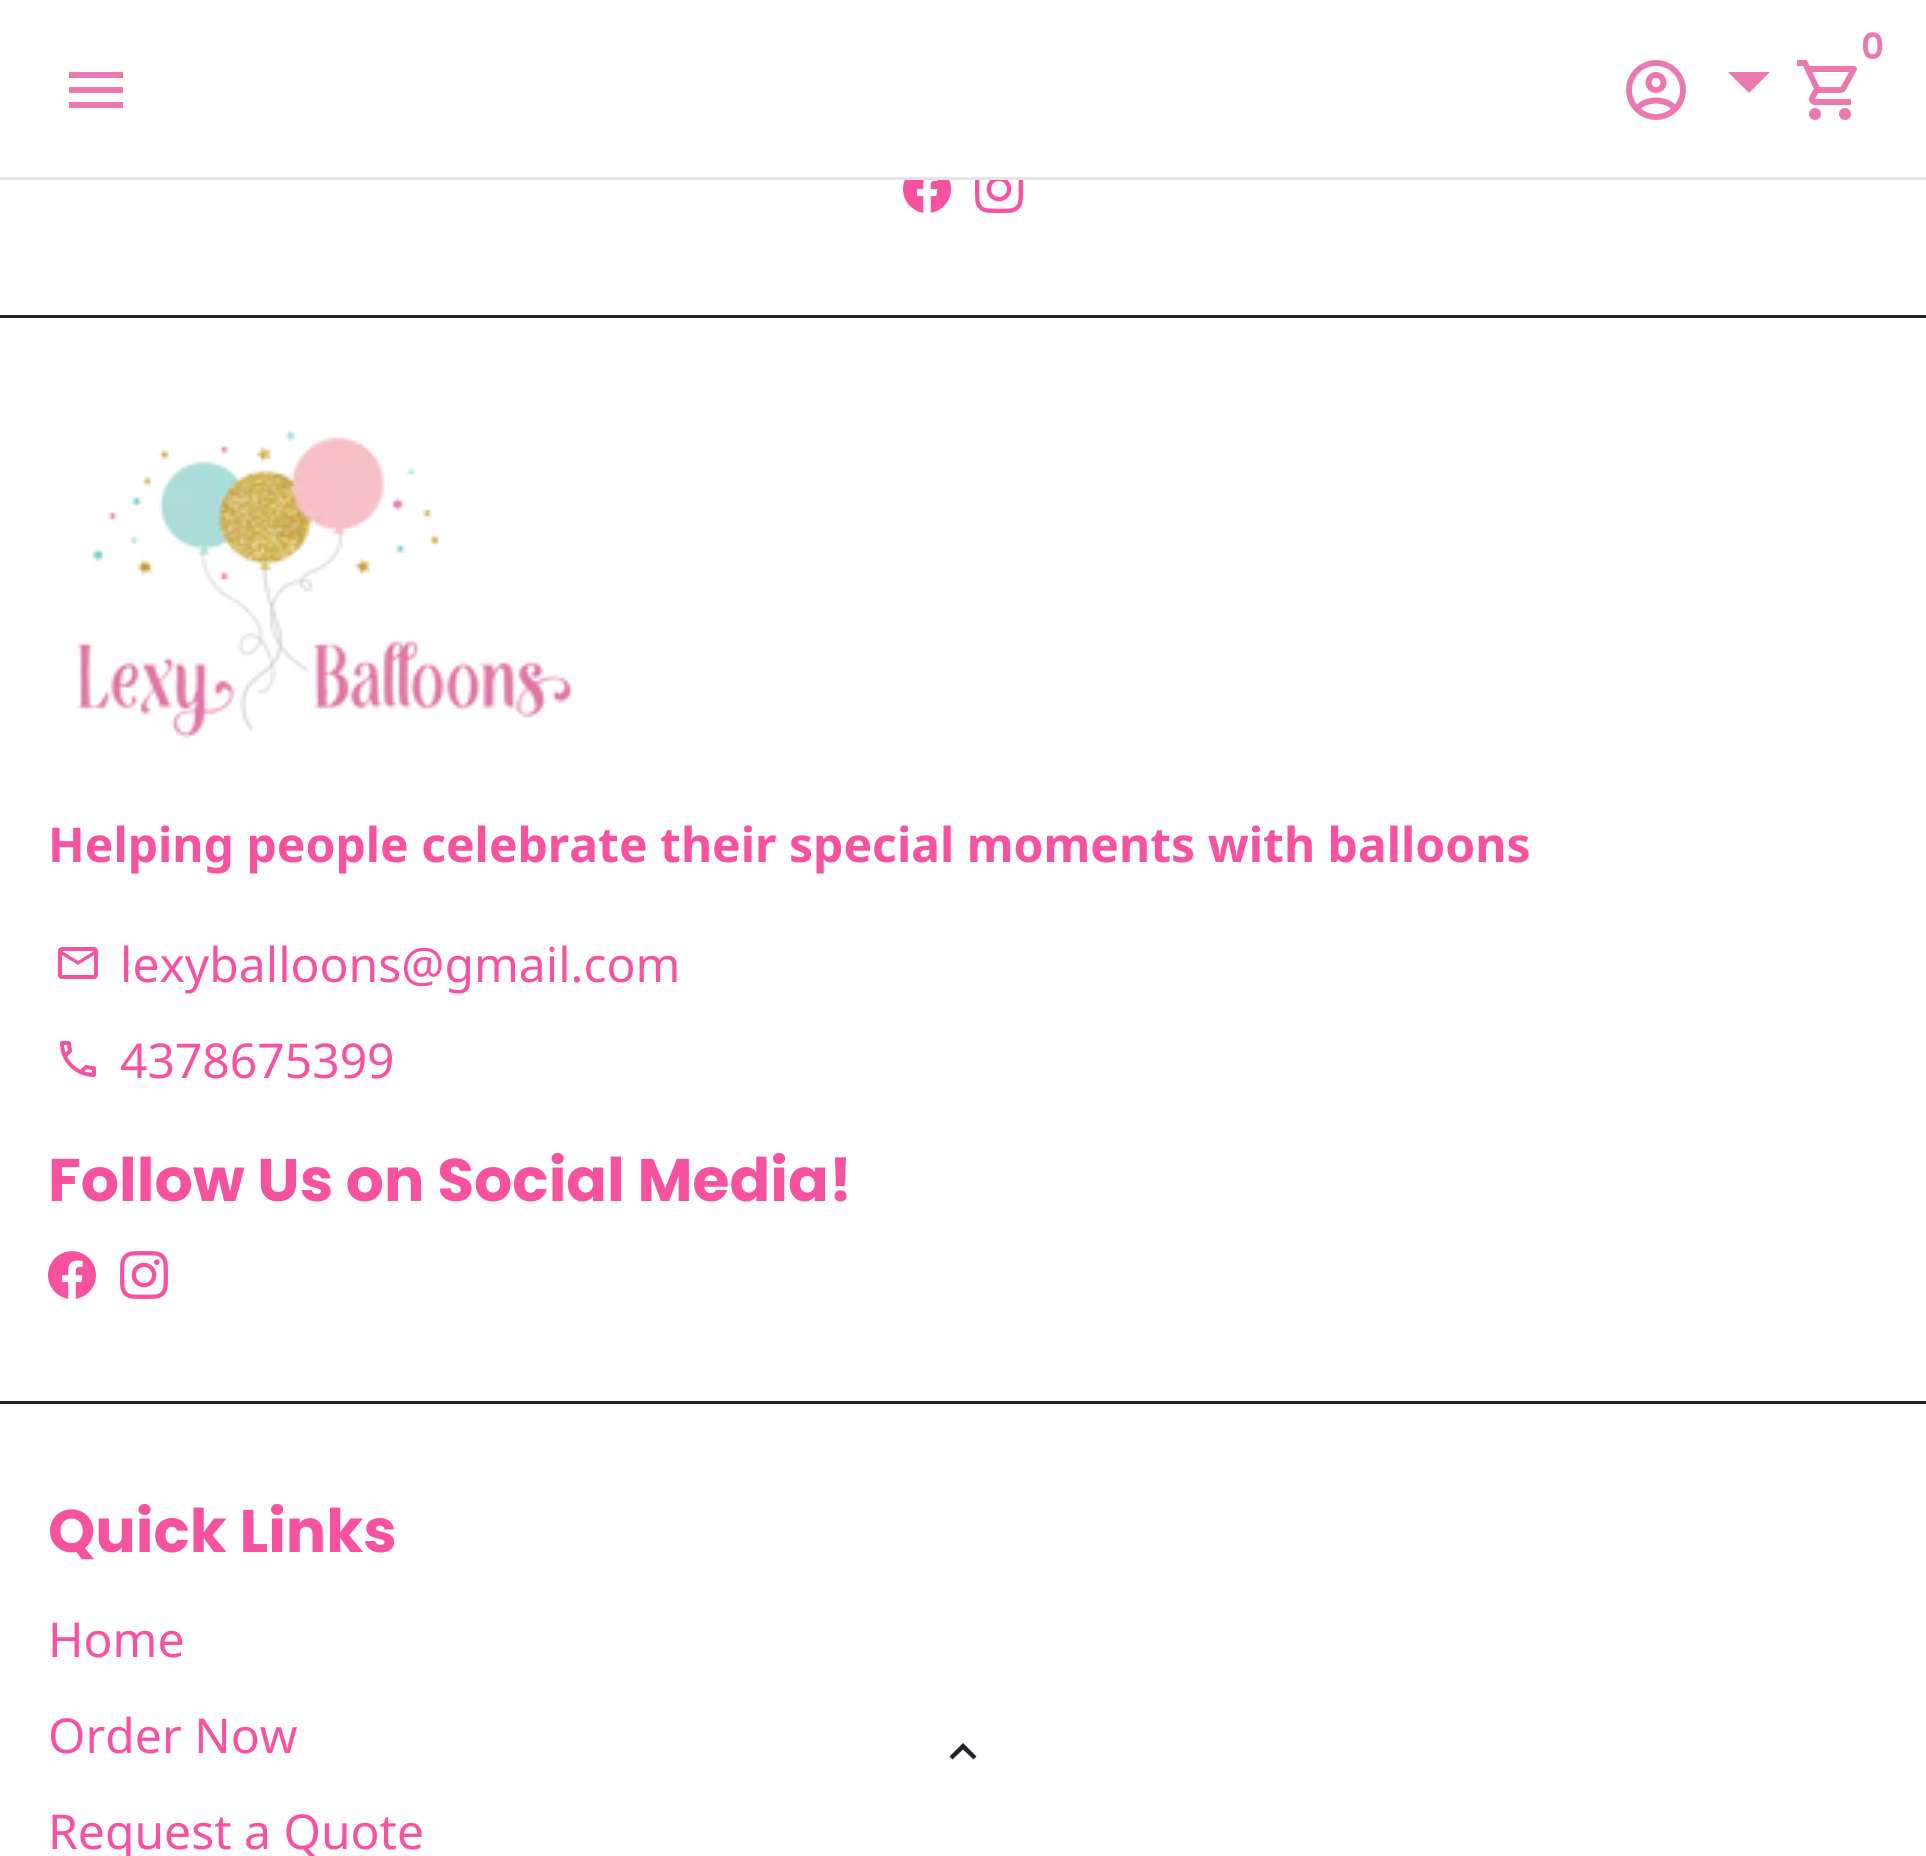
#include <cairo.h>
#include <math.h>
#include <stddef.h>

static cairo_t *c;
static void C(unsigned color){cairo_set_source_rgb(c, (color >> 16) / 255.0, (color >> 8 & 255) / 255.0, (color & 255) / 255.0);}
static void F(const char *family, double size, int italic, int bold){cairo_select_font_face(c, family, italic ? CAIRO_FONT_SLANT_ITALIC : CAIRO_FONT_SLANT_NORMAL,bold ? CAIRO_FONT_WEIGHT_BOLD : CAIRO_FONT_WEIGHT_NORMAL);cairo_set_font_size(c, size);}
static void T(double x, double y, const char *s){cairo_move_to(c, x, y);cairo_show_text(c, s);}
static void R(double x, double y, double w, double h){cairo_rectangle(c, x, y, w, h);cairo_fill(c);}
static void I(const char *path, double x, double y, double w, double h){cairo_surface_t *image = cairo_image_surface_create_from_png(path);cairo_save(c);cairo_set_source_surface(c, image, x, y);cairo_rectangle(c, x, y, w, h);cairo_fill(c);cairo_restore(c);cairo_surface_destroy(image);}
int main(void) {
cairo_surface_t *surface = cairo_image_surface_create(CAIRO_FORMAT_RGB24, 1926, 1856);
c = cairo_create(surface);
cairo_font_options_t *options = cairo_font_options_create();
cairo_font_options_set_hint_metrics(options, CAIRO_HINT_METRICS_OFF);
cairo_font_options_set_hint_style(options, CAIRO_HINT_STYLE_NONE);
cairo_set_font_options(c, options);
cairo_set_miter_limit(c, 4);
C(0xffffff);
cairo_paint(c);
C(0xe5e5e5);
R(0,177,1926,3);
F("Poppins SemiBold",36,0,0);
C(0xeb79af);
T(1861,59,"0");
I("1.png",1796,60,61,60);
I("2.png",1626,60,60,60);
cairo_new_path(c);
cairo_move_to(c,1728,72);
cairo_line_to(c,1770,72);
cairo_line_to(c,1749,93);
cairo_close_path(c);
cairo_fill(c);
cairo_new_path(c);
cairo_move_to(c,69,108);
cairo_line_to(c,123,108);
cairo_line_to(c,123,102);
cairo_line_to(c,69,102);
cairo_close_path(c);
cairo_move_to(c,69,93);
cairo_line_to(c,123,93);
cairo_line_to(c,123,87);
cairo_line_to(c,69,87);
cairo_close_path(c);
cairo_move_to(c,69,72);
cairo_line_to(c,69,78);
cairo_line_to(c,123,78);
cairo_line_to(c,123,72);
cairo_close_path(c);
cairo_fill(c);
C(0x212529);
R(0,315,1926,3);
I("3.png",903,180,48,33);
I("4.png",975,180,48,33);
I("5.png",77,429,497,310);
F("Noto Sans",48,0,1);
C(0xf752a0);
T(48,862,"Helping people celebrate their special moments with balloons");
I("6.png",58,947,40,32);
F("Noto Sans",48,0,0);
T(120,982,"lexyballoons@gmail.com");
I("7.png",60,1041,36,36);
T(120,1078,"4378675399");
F("Poppins",60,0,1);
T(48,1201,"Follow Us on Social Media!");
I("8.png",48,1251,48,48);
I("9.png",120,1251,48,48);
C(0x212529);
R(0,1401,1926,3);
C(0xf752a0);
T(48,1552,"Quick Links");
F("Noto Sans",48,0,0);
T(48,1657,"Home");
T(48,1753,"Order Now");
T(48,1849,"Request a Quote");
C(0x212529);
cairo_new_path(c);
cairo_move_to(c,952.5,1759.5);
cairo_line_to(c,963,1749.5);
cairo_line_to(c,973.5,1759.5);
cairo_line_to(c,976.5,1756.5);
cairo_line_to(c,963,1743);
cairo_line_to(c,949.5,1756.5);
cairo_close_path(c);
cairo_fill(c);
cairo_surface_write_to_png(surface, "o.png");
cairo_font_options_destroy(options);
cairo_destroy(c);
cairo_surface_destroy(surface);
return 0;
}
